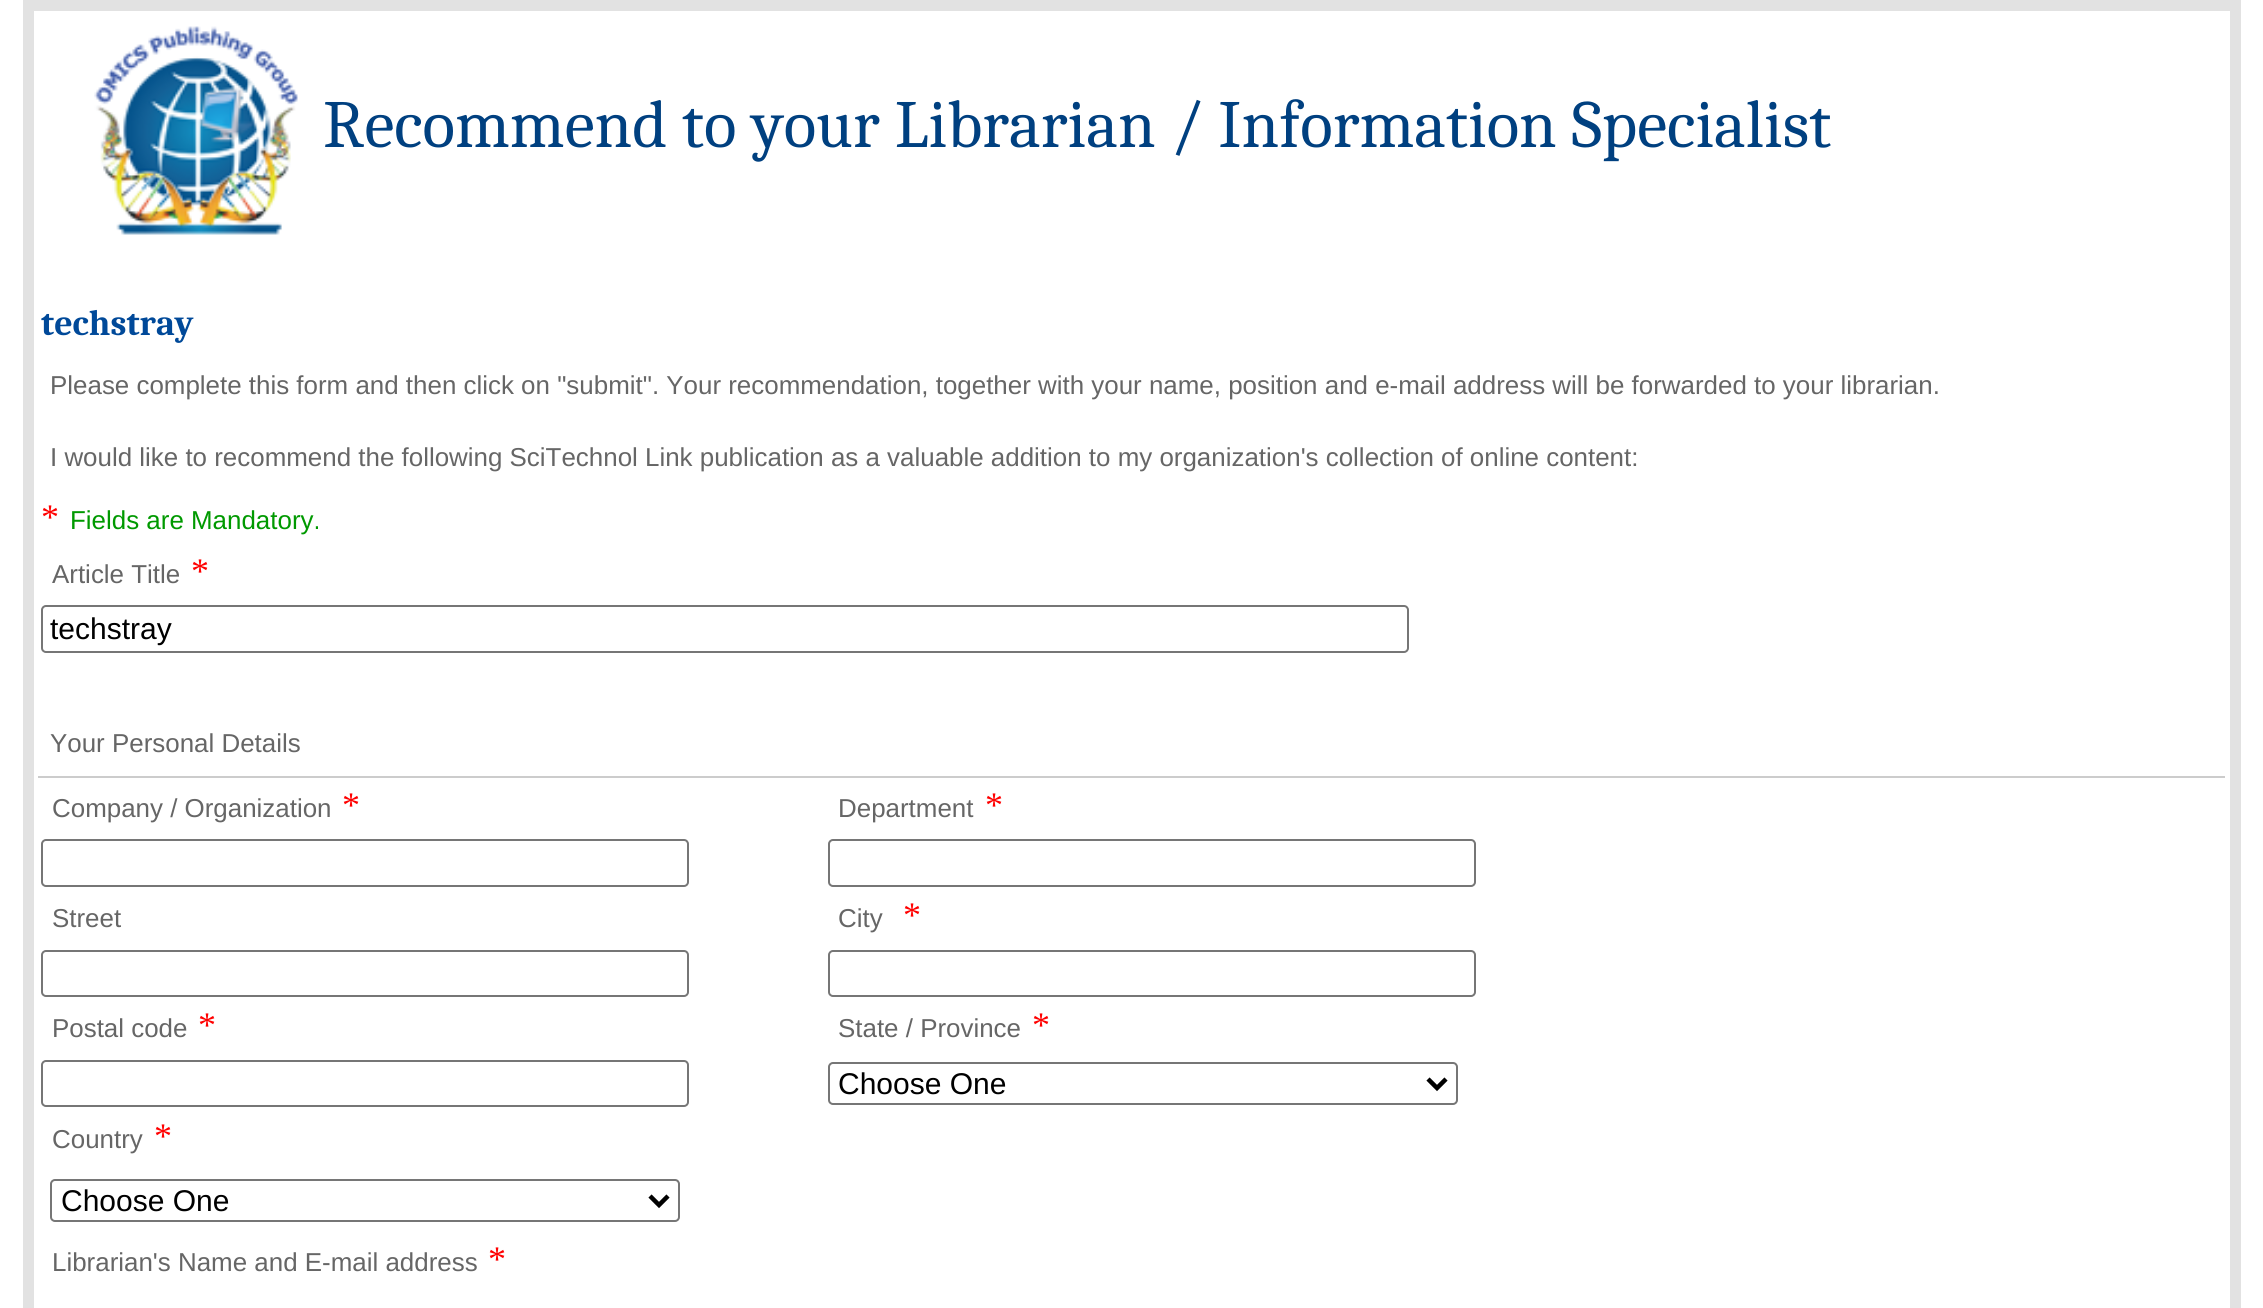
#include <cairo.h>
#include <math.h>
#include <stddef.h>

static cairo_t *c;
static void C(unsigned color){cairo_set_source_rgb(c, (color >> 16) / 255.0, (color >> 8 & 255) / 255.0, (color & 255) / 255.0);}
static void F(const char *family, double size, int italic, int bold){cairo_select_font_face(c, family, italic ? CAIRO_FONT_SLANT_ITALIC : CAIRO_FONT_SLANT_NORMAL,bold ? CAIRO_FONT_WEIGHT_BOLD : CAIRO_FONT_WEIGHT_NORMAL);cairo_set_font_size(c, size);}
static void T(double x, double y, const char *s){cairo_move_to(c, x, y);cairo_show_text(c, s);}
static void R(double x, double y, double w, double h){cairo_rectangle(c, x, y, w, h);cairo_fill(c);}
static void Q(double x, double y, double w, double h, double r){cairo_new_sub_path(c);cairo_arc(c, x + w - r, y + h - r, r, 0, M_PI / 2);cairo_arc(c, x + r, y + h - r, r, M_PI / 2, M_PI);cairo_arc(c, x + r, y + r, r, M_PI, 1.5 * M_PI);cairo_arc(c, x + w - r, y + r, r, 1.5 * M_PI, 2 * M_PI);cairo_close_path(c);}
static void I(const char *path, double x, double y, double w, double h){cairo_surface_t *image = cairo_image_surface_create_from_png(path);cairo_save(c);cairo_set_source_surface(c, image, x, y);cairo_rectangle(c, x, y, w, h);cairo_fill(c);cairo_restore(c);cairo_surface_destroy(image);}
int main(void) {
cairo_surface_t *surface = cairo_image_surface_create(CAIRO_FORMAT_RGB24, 2263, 1308);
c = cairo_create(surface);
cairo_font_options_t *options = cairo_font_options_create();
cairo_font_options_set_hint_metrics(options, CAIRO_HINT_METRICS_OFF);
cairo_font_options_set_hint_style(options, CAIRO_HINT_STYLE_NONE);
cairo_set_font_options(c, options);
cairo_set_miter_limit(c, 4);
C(0xffffff);
cairo_paint(c);
cairo_rectangle(c,28.5,5.5,2207,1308);
C(0xe2e2e2);
cairo_set_line_width(c,11);
cairo_stroke(c);
I("1.png",94,26,204,209);
F("Caladea",67.5,0,0);
C(0x004080);
T(323,147,"Recommend to your Librarian / Information Specialist");
F("Caladea",36,0,1);
C(0x004999);
T(41,335,"techstray");
F("Liberation Sans",25.92,0,0);
C(0x666666);
T(50,394,"Please complete this form and then click on \"submit\". Your recommendation, together with your name, position and e-mail address will be forwarded to your librarian.");
T(50,466,"I would like to recommend the following SciTechnol Link publication as a valuable addition to my organization's collection of online content:");
F("Liberation Serif",36,0,0);
C(0xff0000);
T(41,529,"*");
F("Liberation Sans",25.92,0,0);
C(0x009900);
T(70,529,"Fields are Mandatory.");
C(0x666666);
T(52,583,"Article Title");
F("Liberation Serif",36,0,0);
C(0xff0000);
T(191,583,"*");
Q(42,606,1366,46,4);
C(0x767676);
cairo_set_line_width(c,2);
cairo_stroke(c);
F("Liberation Sans",30,0,0);
C(0x000000);
T(50,639,"techstray");
C(0xcccccc);
R(38,776,2187,2);
F("Liberation Sans",25.92,0,0);
C(0x666666);
T(50,752,"Your Personal Details");
T(52,817,"Company / Organization");
F("Liberation Serif",36,0,0);
C(0xff0000);
T(342,817,"*");
F("Liberation Sans",25.92,0,0);
C(0x666666);
T(838,817,"Department");
F("Liberation Serif",36,0,0);
C(0xff0000);
T(985,817,"*");
Q(42,840,646,46,4);
C(0x767676);
cairo_stroke(c);
Q(829,840,646,46,4);
cairo_stroke(c);
F("Liberation Sans",25.92,0,0);
C(0x666666);
T(52,927,"Street");
T(838,927,"City");
F("Liberation Serif",36,0,0);
C(0xff0000);
T(903,927,"*");
Q(42,951,646,45,4);
C(0x767676);
cairo_stroke(c);
Q(829,951,646,45,4);
cairo_stroke(c);
F("Liberation Sans",25.92,0,0);
C(0x666666);
T(52,1037,"Postal code");
F("Liberation Serif",36,0,0);
C(0xff0000);
T(198,1037,"*");
F("Liberation Sans",25.92,0,0);
C(0x666666);
T(838,1037,"State / Province");
F("Liberation Serif",36,0,0);
C(0xff0000);
T(1032,1037,"*");
Q(42,1061,646,45,4);
C(0x767676);
cairo_stroke(c);
Q(829,1063,628,41,4);
cairo_stroke(c);
cairo_new_path(c);
cairo_move_to(c,1428,1079);
cairo_line_to(c,1437,1088);
cairo_line_to(c,1446,1079);
C(0x000000);
cairo_set_line_width(c,4.5);
cairo_stroke(c);
F("Liberation Sans",30,0,0);
T(838,1094,"Choose One");
F("Liberation Sans",25.92,0,0);
C(0x666666);
T(52,1148,"Country");
F("Liberation Serif",36,0,0);
C(0xff0000);
T(154,1148,"*");
Q(51,1180,628,41,4);
C(0x767676);
cairo_set_line_width(c,2);
cairo_stroke(c);
cairo_new_path(c);
cairo_move_to(c,650,1196);
cairo_line_to(c,659,1205);
cairo_line_to(c,668,1196);
C(0x000000);
cairo_set_line_width(c,4.5);
cairo_stroke(c);
F("Liberation Sans",30,0,0);
T(61,1211,"Choose One");
F("Liberation Sans",25.92,0,0);
C(0x666666);
T(52,1271,"Librarian's Name and E-mail address");
F("Liberation Serif",36,0,0);
C(0xff0000);
T(488,1271,"*");
cairo_surface_write_to_png(surface, "o.png");
cairo_font_options_destroy(options);
cairo_destroy(c);
cairo_surface_destroy(surface);
return 0;
}
